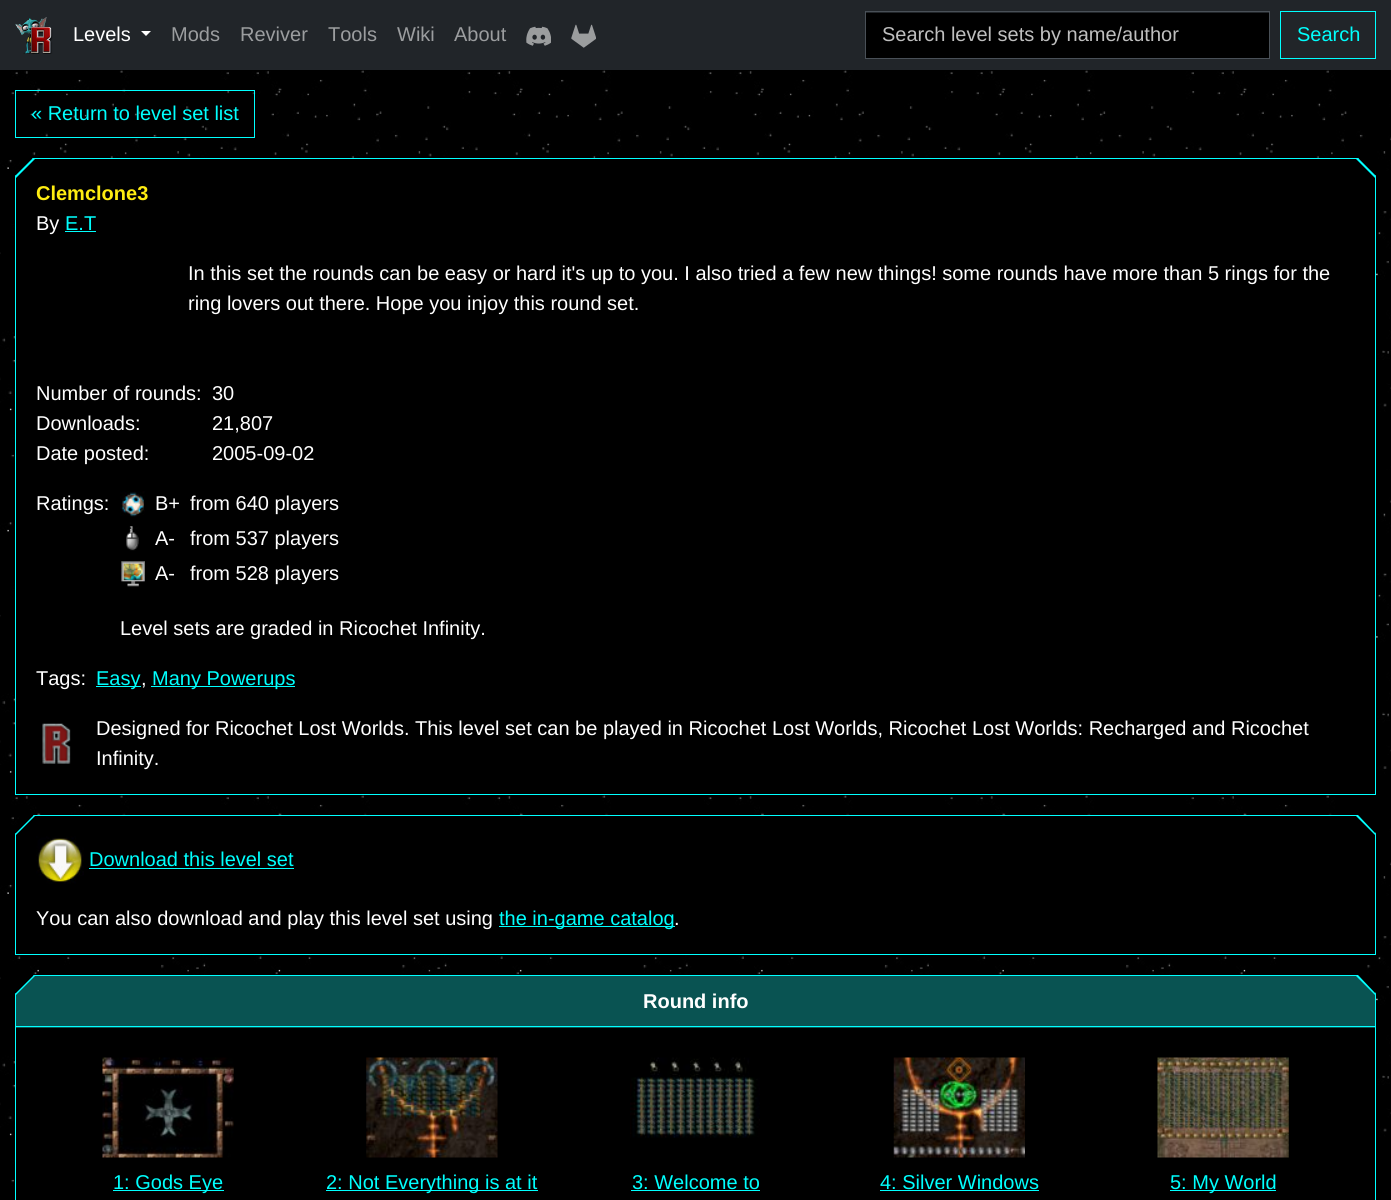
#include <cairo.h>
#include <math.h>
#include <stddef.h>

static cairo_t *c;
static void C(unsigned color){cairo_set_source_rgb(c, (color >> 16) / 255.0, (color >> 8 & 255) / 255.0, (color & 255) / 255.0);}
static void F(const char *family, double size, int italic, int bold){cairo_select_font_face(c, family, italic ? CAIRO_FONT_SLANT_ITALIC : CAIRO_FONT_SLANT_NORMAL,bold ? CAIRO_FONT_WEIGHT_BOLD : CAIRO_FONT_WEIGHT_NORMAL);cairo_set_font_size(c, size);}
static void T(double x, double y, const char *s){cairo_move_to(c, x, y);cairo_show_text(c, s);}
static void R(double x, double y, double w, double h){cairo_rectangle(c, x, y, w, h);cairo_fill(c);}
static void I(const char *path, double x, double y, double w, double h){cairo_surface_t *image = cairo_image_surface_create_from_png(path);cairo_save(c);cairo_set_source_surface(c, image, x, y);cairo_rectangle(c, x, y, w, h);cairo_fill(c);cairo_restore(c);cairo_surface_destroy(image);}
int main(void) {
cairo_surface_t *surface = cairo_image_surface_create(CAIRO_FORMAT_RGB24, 1391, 1200);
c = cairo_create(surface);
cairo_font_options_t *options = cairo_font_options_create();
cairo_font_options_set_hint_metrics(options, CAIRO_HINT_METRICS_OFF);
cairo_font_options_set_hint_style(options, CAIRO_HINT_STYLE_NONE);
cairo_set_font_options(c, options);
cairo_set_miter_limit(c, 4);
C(0xffffff);
cairo_paint(c);
I("1.png",0,70,1391,1130);
C(0x212529);
R(0,0,1391,70);
I("2.png",15,17,38,37);
F("Liberation Sans",20,0,0);
C(0xffffff);
T(73,41,"Levels");
cairo_new_path(c);
cairo_move_to(c,141,31);
cairo_line_to(c,151,31);
cairo_line_to(c,146,36);
cairo_close_path(c);
cairo_fill(c);
C(0x9b9d9f);
T(171,41,"Mods");
T(240,41,"Reviver");
T(328,41,"Tools");
T(397,41,"Wiki");
T(454,41,"About");
I("3.png",526,26,25,20);
I("4.png",571,24,25,24);
C(0x000000);
R(866,13,403,45);
cairo_rectangle(c,865.5,11.5,404,47);
C(0x495057);
cairo_set_line_width(c,1);
cairo_stroke(c);
C(0xbfbfbf);
T(882,41,"Search level sets by name/author");
cairo_rectangle(c,1280.5,11.5,95,47);
C(0x00fffe);
cairo_stroke(c);
T(1297,41,"Search");
cairo_rectangle(c,15.5,90.5,239,47);
cairo_stroke(c);
T(31,120,"« Return to level set list");
C(0x01ffff);
cairo_new_path(c);
cairo_move_to(c,15,176);
cairo_line_to(c,15,795);
cairo_line_to(c,1376,795);
cairo_line_to(c,1376,176);
cairo_line_to(c,1358,158);
cairo_line_to(c,33,158);
cairo_close_path(c);
cairo_fill(c);
cairo_set_fill_rule(c,CAIRO_FILL_RULE_EVEN_ODD);
cairo_new_path(c);
cairo_move_to(c,15,176);
cairo_line_to(c,15,795);
cairo_line_to(c,1376,795);
cairo_line_to(c,1376,176);
cairo_line_to(c,1375,175);
cairo_line_to(c,1375,794);
cairo_line_to(c,16,794);
cairo_line_to(c,16,175);
cairo_close_path(c);
cairo_move_to(c,32,159);
cairo_line_to(c,1359,159);
cairo_line_to(c,1358,158);
cairo_line_to(c,33,158);
cairo_close_path(c);
cairo_fill(c);
C(0x000000);
cairo_set_fill_rule(c,CAIRO_FILL_RULE_WINDING);
cairo_new_path(c);
cairo_move_to(c,16,178);
cairo_line_to(c,16,794);
cairo_line_to(c,1375,794);
cairo_line_to(c,1375,178);
cairo_line_to(c,1356,159);
cairo_line_to(c,35,159);
cairo_close_path(c);
cairo_fill(c);
F("Liberation Sans",20,0,1);
C(0xffed11);
T(36,200,"Clemclone3");
F("Liberation Sans",20,0,0);
C(0xffffff);
T(36,230,"By");
C(0x00fffe);
T(65,230,"E.T");
R(65,231,31,1);
C(0xffffff);
T(188,280,"In this set the rounds can be easy or hard it's up to you. I also tried a few new things! some rounds have more than 5 rings for the");
T(188,310,"ring lovers out there. Hope you injoy this round set.");
T(36,400,"Number of rounds:");
T(212,400,"30");
T(36,430,"Downloads:");
T(212,430,"21,807");
T(36,460,"Date posted:");
T(212,460,"2005-09-02");
T(36,510,"Ratings:");
I("5.png",120,491,25,26);
T(155,510,"B+");
T(190,510,"from 640 players");
I("6.png",126,526,13,25);
T(155,545,"A-");
T(190,545,"from 537 players");
I("7.png",120,561,25,26);
T(155,580,"A-");
T(190,580,"from 528 players");
T(120,635,"Level sets are graded in Ricochet Infinity.");
T(36,685,"Tags:");
C(0x00fffe);
R(96,686,45,1);
T(96,685,"Easy");
C(0xffffff);
T(141,685,",");
C(0x00fffe);
R(151,686,144,1);
T(152,685,"Many Powerups");
I("8.png",42,723,29,41);
C(0xffffff);
T(96,735,"Designed for Ricochet Lost Worlds. This level set can be played in Ricochet Lost Worlds, Ricochet Lost Worlds: Recharged and Ricochet");
T(96,765,"Infinity.");
C(0x01ffff);
cairo_new_path(c);
cairo_move_to(c,15,834);
cairo_line_to(c,15,955);
cairo_line_to(c,1376,955);
cairo_line_to(c,1376,834);
cairo_line_to(c,1358,815);
cairo_line_to(c,34,815);
cairo_close_path(c);
cairo_fill(c);
cairo_set_fill_rule(c,CAIRO_FILL_RULE_EVEN_ODD);
cairo_new_path(c);
cairo_move_to(c,15,834);
cairo_line_to(c,15,955);
cairo_line_to(c,1376,955);
cairo_line_to(c,1376,834);
cairo_line_to(c,1375,832);
cairo_line_to(c,1375,954);
cairo_line_to(c,16,954);
cairo_line_to(c,16,833);
cairo_close_path(c);
cairo_move_to(c,33,816);
cairo_line_to(c,1358,816);
cairo_line_to(c,1358,815);
cairo_line_to(c,34,815);
cairo_close_path(c);
cairo_fill(c);
C(0x000000);
cairo_set_fill_rule(c,CAIRO_FILL_RULE_WINDING);
cairo_new_path(c);
cairo_move_to(c,16,835);
cairo_line_to(c,16,954);
cairo_line_to(c,1375,954);
cairo_line_to(c,1375,835);
cairo_line_to(c,1356,816);
cairo_line_to(c,35,816);
cairo_close_path(c);
cairo_fill(c);
I("9.png",36,836,48,48);
C(0x00fffe);
T(89,866,"Download this level set");
R(89,868,205,1);
C(0xffffff);
T(36,925,"You can also download and play this level set using");
C(0x00fffe);
R(499,926,176,1);
T(499,925,"the in-game catalog");
C(0xffffff);
T(674,925,".");
C(0x01ffff);
cairo_new_path(c);
cairo_move_to(c,15,994);
cairo_line_to(c,15,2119);
cairo_line_to(c,1376,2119);
cairo_line_to(c,1376,994);
cairo_line_to(c,1358,975);
cairo_line_to(c,34,975);
cairo_close_path(c);
cairo_fill(c);
cairo_set_fill_rule(c,CAIRO_FILL_RULE_EVEN_ODD);
cairo_new_path(c);
cairo_move_to(c,15,994);
cairo_line_to(c,15,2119);
cairo_line_to(c,1376,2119);
cairo_line_to(c,1376,994);
cairo_line_to(c,1375,992);
cairo_line_to(c,1375,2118);
cairo_line_to(c,16,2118);
cairo_line_to(c,16,993);
cairo_close_path(c);
cairo_move_to(c,33,976);
cairo_line_to(c,1358,976);
cairo_line_to(c,1358,975);
cairo_line_to(c,34,975);
cairo_close_path(c);
cairo_fill(c);
C(0x095352);
cairo_set_fill_rule(c,CAIRO_FILL_RULE_WINDING);
cairo_new_path(c);
cairo_move_to(c,16,995);
cairo_line_to(c,16,1028);
cairo_line_to(c,1375,1028);
cairo_line_to(c,1375,995);
cairo_line_to(c,1356,976);
cairo_line_to(c,35,976);
cairo_close_path(c);
cairo_fill(c);
C(0x01ffff);
R(16,1026,1359,1);
F("Liberation Sans",20,0,1);
C(0xffffff);
T(643,1008,"Round info");
C(0x000000);
R(16,1028,1359,172);
I("10.png",102,1057,132,101);
C(0x00fffe);
R(113,1190,111,1);
F("Liberation Sans",20,0,0);
T(113,1189,"1: Gods Eye");
I("11.png",366,1057,132,101);
R(326,1190,212,1);
T(326,1189,"2: Not Everything is at it");
I("12.png",630,1057,130,81);
T(632,1189,"3: Welcome to");
R(631,1190,129,1);
I("13.png",893,1057,132,101);
T(880,1189,"4: Silver Windows");
R(880,1190,159,1);
I("14.png",1157,1057,132,101);
R(1170,1190,106,1);
T(1170,1189,"5: My World");
cairo_surface_write_to_png(surface, "o.png");
cairo_font_options_destroy(options);
cairo_destroy(c);
cairo_surface_destroy(surface);
return 0;
}
